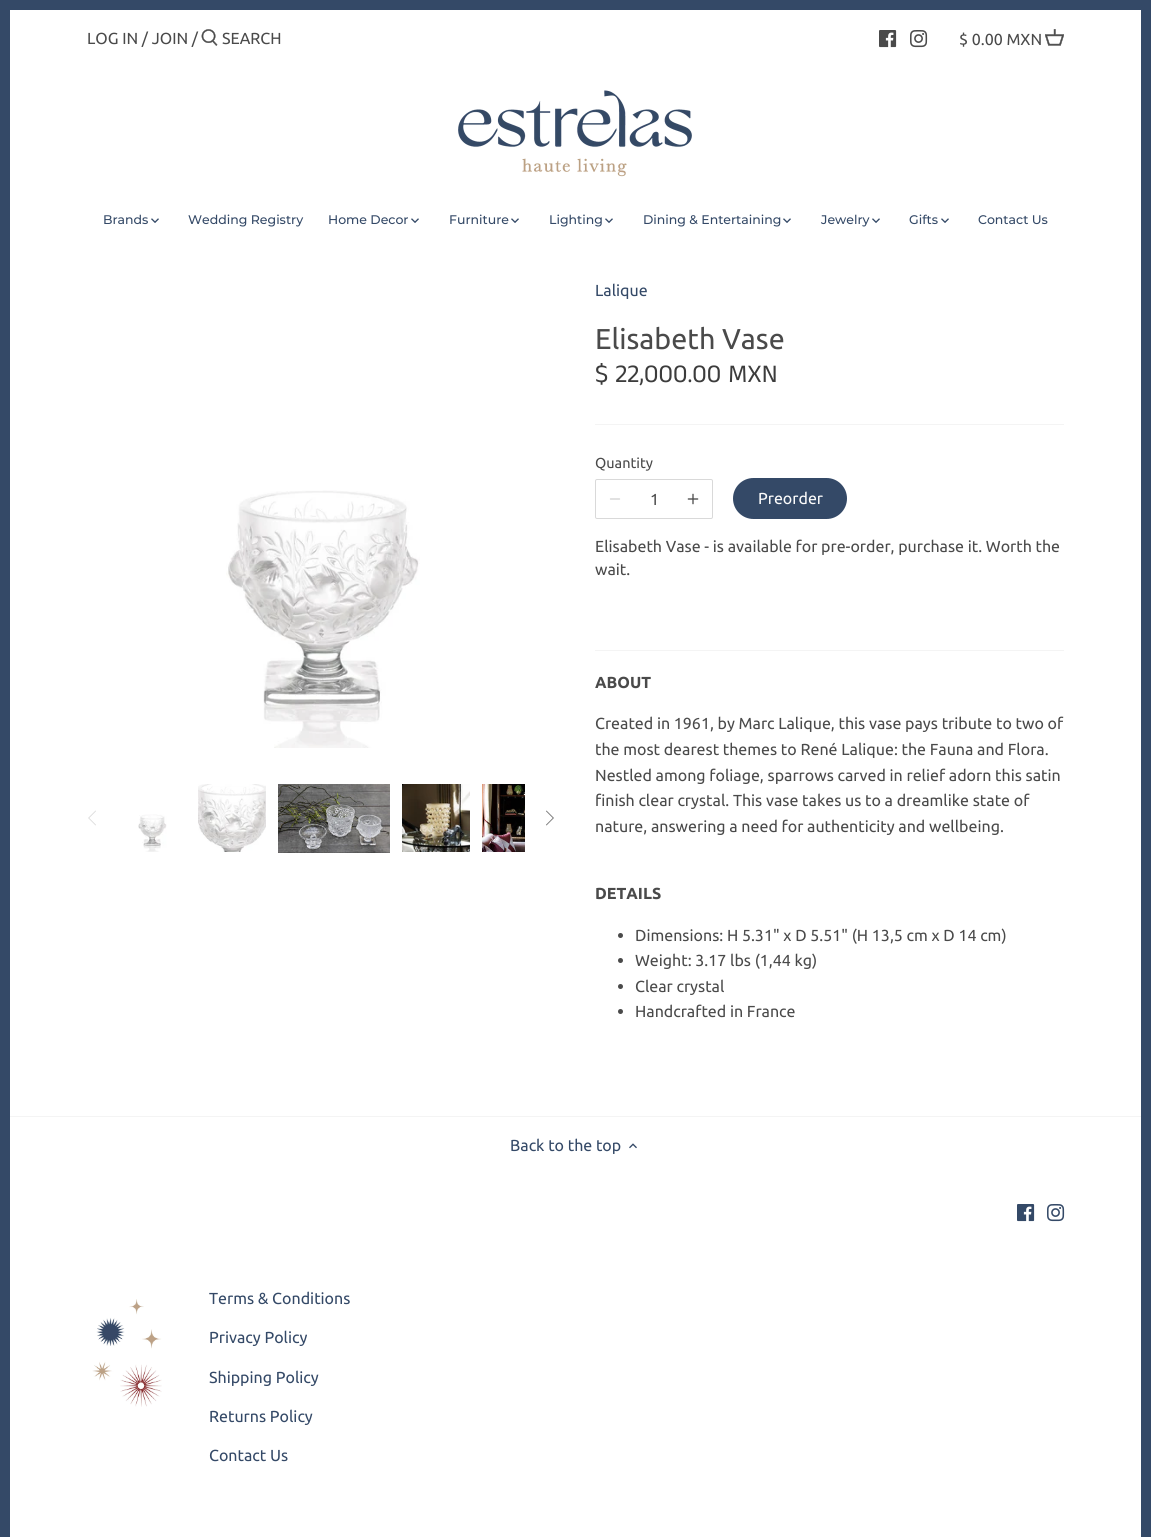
#include <cairo.h>
#include <math.h>
#include <stddef.h>

static cairo_t *c;
static void C(unsigned color){cairo_set_source_rgb(c, (color >> 16) / 255.0, (color >> 8 & 255) / 255.0, (color & 255) / 255.0);}
static void F(const char *family, double size, int italic, int bold){cairo_select_font_face(c, family, italic ? CAIRO_FONT_SLANT_ITALIC : CAIRO_FONT_SLANT_NORMAL,bold ? CAIRO_FONT_WEIGHT_BOLD : CAIRO_FONT_WEIGHT_NORMAL);cairo_set_font_size(c, size);}
static void T(double x, double y, const char *s){cairo_move_to(c, x, y);cairo_show_text(c, s);}
static void R(double x, double y, double w, double h){cairo_rectangle(c, x, y, w, h);cairo_fill(c);}
static void Q(double x, double y, double w, double h, double r){cairo_new_sub_path(c);cairo_arc(c, x + w - r, y + h - r, r, 0, M_PI / 2);cairo_arc(c, x + r, y + h - r, r, M_PI / 2, M_PI);cairo_arc(c, x + r, y + r, r, M_PI, 1.5 * M_PI);cairo_arc(c, x + w - r, y + r, r, 1.5 * M_PI, 2 * M_PI);cairo_close_path(c);}
static void I(const char *path, double x, double y, double w, double h){cairo_surface_t *image = cairo_image_surface_create_from_png(path);cairo_save(c);cairo_set_source_surface(c, image, x, y);cairo_rectangle(c, x, y, w, h);cairo_fill(c);cairo_restore(c);cairo_surface_destroy(image);}
int main(void) {
cairo_surface_t *surface = cairo_image_surface_create(CAIRO_FORMAT_RGB24, 1151, 1537);
c = cairo_create(surface);
cairo_font_options_t *options = cairo_font_options_create();
cairo_font_options_set_hint_metrics(options, CAIRO_HINT_METRICS_OFF);
cairo_font_options_set_hint_style(options, CAIRO_HINT_STYLE_NONE);
cairo_set_font_options(c, options);
cairo_set_miter_limit(c, 4);
C(0xffffff);
cairo_paint(c);
cairo_rectangle(c,5,5,1141,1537);
C(0x344967);
cairo_set_line_width(c,10);
cairo_stroke(c);
F("Ubuntu",16,0,0);
C(0x4a4a4a);
T(87,44,"LOG IN / JOIN /");
I("1.png",201,29,17,17);
T(222,44,"SEARCH");
I("2.png",879,30,18,18);
I("3.png",910,30,18,18);
T(959,45,"$ 0.00 MXN");
I("4.png",1045,29,19,17);
I("5.png",458,90,234,87);
F("Montserrat Medium",12.5,0,0);
C(0x344967);
T(103,224,"Brands");
I("6.png",151,218,8,5);
T(188,224,"Wedding Registry");
T(328,224,"Home Decor");
I("6.png",411,218,8,5);
T(449,224,"Furniture");
I("6.png",511,218,8,5);
T(549,224,"Lighting");
I("6.png",605,218,8,5);
T(643,224,"Dining & Entertaining");
I("6.png",783,218,8,5);
T(821,224,"Jewelry");
I("6.png",872,218,8,5);
T(909,224,"Gifts");
I("6.png",941,218,8,5);
T(978,224,"Contact Us");
I("7.png",226,490,194,258);
I("8.png",88,810,8,16);
I("9.png",138,814,29,38);
I("10.png",198,784,68,68);
I("11.png",278,784,112,69);
I("12.png",402,784,68,68);
I("13.png",482,784,43,68);
I("14.png",546,810,8,16);
C(0xf4f4f4);
R(595,424,469,1);
F("Ubuntu",16,0,0);
C(0x344967);
T(595,296,"Lalique");
F("Ubuntu",28.75,0,0);
C(0x4a4a4a);
T(595,349,"Elisabeth Vase");
F("Anek Tamil",25.5,0,0);
C(0x3c3c3c);
T(595,382,"$ 22,000.00 MXN");
C(0xf4f4f4);
R(595,650,469,1);
F("Ubuntu",14.5,0,0);
C(0x4a4a4a);
T(595,468,"Quantity");
Q(595.5,479.5,117,39,1.5);
C(0xd9d9d9);
cairo_set_line_width(c,1);
cairo_stroke(c);
cairo_new_path(c);
cairo_move_to(c,610.5,499);
cairo_line_to(c,619.5,499);
C(0xd2d2d2);
cairo_set_line_width(c,1.3);
cairo_set_line_cap(c,CAIRO_LINE_CAP_ROUND);
cairo_set_line_join(c,CAIRO_LINE_JOIN_ROUND);
cairo_stroke(c);
F("Ubuntu",16,0,0);
C(0x4a4a4a);
T(650,505,"1");
I("15.png",687,493,12,12);
C(0x344967);
Q(734,479,112,39,19.5);
cairo_fill_preserve(c);
cairo_set_line_width(c,2);
cairo_set_line_cap(c,CAIRO_LINE_CAP_BUTT);
cairo_set_line_join(c,CAIRO_LINE_JOIN_MITER);
cairo_stroke(c);
C(0xfcfcfc);
T(758,504,"Preorder");
C(0x4a4a4a);
T(595,552,"Elisabeth Vase - is available for pre-order, purchase it. Worth the");
T(595,575,"wait.");
F("Ubuntu",16,0,1);
T(595,688,"ABOUT");
F("Ubuntu",16,0,0);
T(595,729,"Created in 1961, by Marc Lalique, this vase pays tribute to two of");
T(595,755,"the most dearest themes to René Lalique: the Fauna and Flora.");
T(595,781,"Nestled among foliage, sparrows carved in relief adorn this satin");
T(595,806,"finish clear crystal. This vase takes us to a dreamlike state of");
T(595,832,"nature, answering a need for authenticity and wellbeing.");
F("Ubuntu",16,0,1);
T(595,899,"DETAILS");
cairo_new_path(c);
cairo_arc(c,620.5,935.5,2.5,0,2 * M_PI);
cairo_fill(c);
F("Ubuntu",16,0,0);
T(635,941,"Dimensions: H 5.31\" x D 5.51\" (H 13,5 cm x D 14 cm)");
cairo_new_path(c);
cairo_arc(c,620.5,960.5,2.5,0,2 * M_PI);
cairo_fill(c);
T(635,966,"Weight: 3.17 lbs (1,44 kg)");
cairo_new_path(c);
cairo_arc(c,620.5,986.5,2.5,0,2 * M_PI);
cairo_fill(c);
T(635,992,"Clear crystal");
cairo_new_path(c);
cairo_arc(c,620.5,1011.5,2.5,0,2 * M_PI);
cairo_fill(c);
T(635,1017,"Handcrafted in France");
C(0xf4f4f4);
R(10,1116,1131,1);
C(0x344967);
T(510,1151,"Back to the top");
I("16.png",629,1143,8,6);
I("17.png",1017,1204,18,18);
I("18.png",1047,1204,18,18);
I("19.png",92,1299,70,108);
T(209,1304,"Terms & Conditions");
T(209,1343,"Privacy Policy");
T(209,1383,"Shipping Policy");
T(209,1422,"Returns Policy");
T(209,1461,"Contact Us");
cairo_surface_write_to_png(surface, "o.png");
cairo_font_options_destroy(options);
cairo_destroy(c);
cairo_surface_destroy(surface);
return 0;
}
